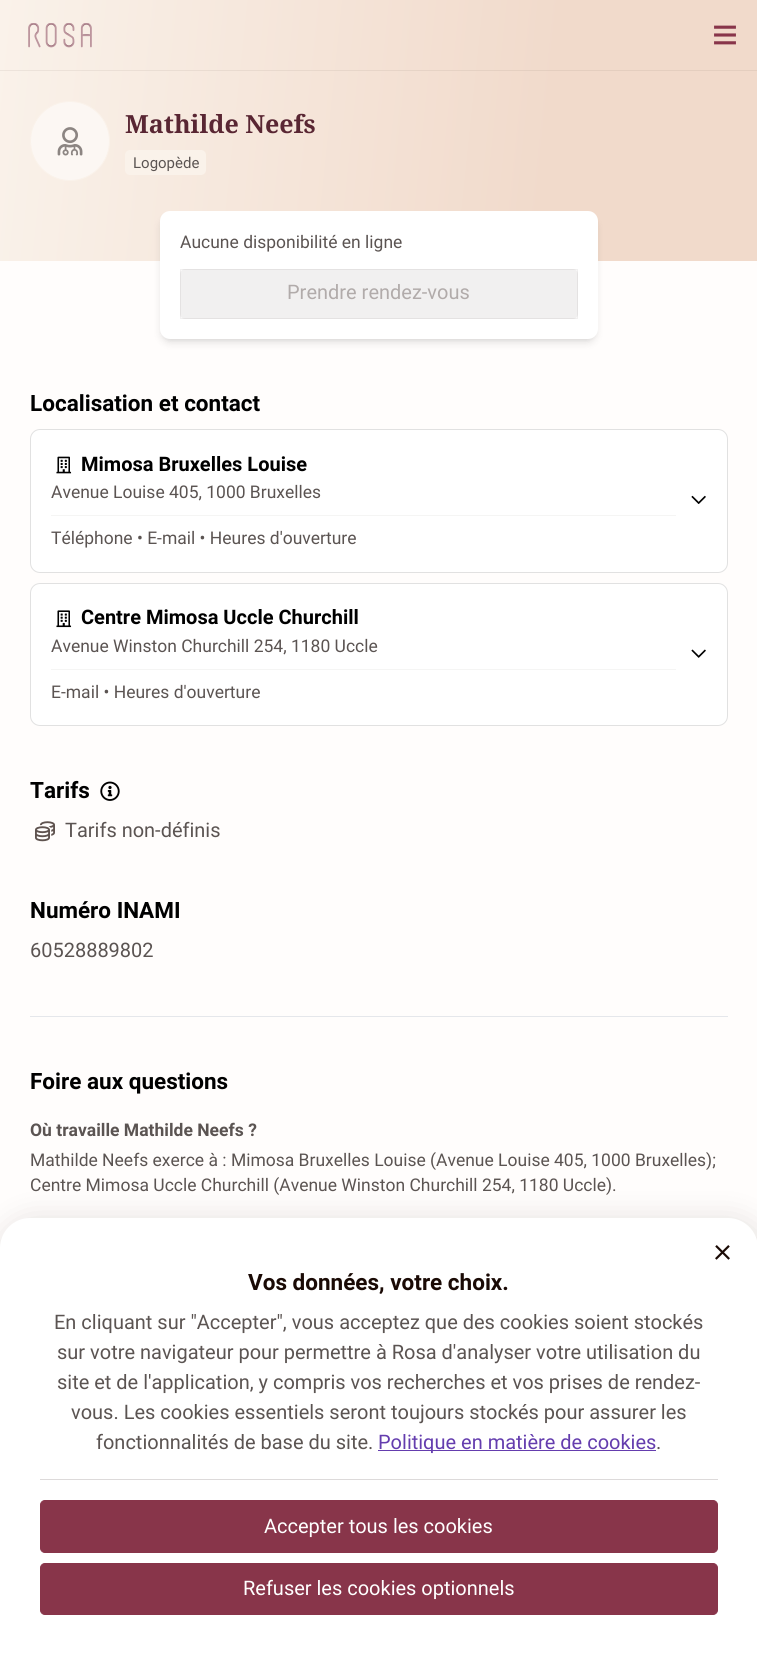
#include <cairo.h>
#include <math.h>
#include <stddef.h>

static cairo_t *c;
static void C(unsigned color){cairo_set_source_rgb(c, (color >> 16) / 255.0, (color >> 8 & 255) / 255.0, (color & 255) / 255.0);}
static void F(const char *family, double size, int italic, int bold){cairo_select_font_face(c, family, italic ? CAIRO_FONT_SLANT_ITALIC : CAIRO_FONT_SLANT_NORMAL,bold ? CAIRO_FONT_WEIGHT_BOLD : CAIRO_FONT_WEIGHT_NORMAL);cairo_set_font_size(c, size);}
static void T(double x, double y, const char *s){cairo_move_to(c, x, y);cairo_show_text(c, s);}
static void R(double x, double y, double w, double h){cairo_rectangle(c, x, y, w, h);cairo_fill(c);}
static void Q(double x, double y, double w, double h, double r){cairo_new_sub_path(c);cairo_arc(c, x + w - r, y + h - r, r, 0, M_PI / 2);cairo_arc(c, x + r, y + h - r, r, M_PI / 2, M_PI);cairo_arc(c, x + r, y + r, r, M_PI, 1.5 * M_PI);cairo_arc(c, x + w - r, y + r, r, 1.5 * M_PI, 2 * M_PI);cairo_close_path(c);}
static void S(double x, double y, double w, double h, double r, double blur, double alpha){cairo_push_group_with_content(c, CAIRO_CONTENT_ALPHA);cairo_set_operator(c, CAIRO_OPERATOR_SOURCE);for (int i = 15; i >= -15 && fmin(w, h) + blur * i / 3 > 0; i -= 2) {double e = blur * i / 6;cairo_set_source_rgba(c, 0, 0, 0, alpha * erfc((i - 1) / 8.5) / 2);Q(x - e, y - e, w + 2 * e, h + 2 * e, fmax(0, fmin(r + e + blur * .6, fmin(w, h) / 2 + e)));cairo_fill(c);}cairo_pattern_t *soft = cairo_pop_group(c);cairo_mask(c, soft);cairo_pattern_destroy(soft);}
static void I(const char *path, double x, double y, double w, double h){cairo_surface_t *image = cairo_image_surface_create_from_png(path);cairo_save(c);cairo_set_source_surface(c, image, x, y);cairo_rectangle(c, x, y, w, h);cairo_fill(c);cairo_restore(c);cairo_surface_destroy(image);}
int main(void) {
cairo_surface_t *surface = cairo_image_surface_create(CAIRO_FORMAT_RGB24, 757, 1675);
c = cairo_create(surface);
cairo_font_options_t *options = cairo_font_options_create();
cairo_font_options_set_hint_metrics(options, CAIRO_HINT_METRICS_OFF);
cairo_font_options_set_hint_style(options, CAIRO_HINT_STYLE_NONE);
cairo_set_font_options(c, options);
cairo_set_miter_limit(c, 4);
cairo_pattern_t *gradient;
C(0xfffdfc);
cairo_paint(c);
gradient = cairo_pattern_create_linear(-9,90,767,171);
cairo_pattern_add_color_stop_rgba(gradient,0,0.98,0.949,0.918,1);
cairo_pattern_add_color_stop_rgba(gradient,.72,0.945,0.855,0.796,1);
cairo_set_source(c,gradient);
cairo_pattern_destroy(gradient);
R(0,0,757,261);
gradient = cairo_pattern_create_linear(-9,90,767,171);
cairo_pattern_add_color_stop_rgba(gradient,0,0.929,0.894,0.863,1);
cairo_pattern_add_color_stop_rgba(gradient,.72,0.894,0.808,0.749,1);
cairo_set_source(c,gradient);
cairo_pattern_destroy(gradient);
R(0,70,757,1);
I("1.png",28,23,64,25);
I("2.png",714,25,22,20);
C(0xfcf7f3);
cairo_arc(c,70,141,39.5,0,2 * M_PI);
cairo_fill_preserve(c);
C(0xfaf2ea);
cairo_set_line_width(c,1);
cairo_stroke(c);
I("3.png",57,127,26,29);
F("Noto Serif",25,0,1);
C(0x592633);
T(125,133,"Mathilde Neefs");
C(0xfaf2ea);
Q(125,150,81,25,5);
cairo_fill(c);
F("Roboto",15,0,0);
C(0x5b5452);
T(133,168,"Logopède");
C(0x000000);
S(163,216,432,123,8,2.5,.1);
S(161,218,435,125,9,4,.1);
C(0xffffff);
Q(160,211,438,128,10);
cairo_fill(c);
F("Roboto",17.5,0,0);
C(0x5b5452);
T(180,248,"Aucune disponibilité en ligne");
C(0xf1f0f0);
Q(180,269,398,50,5);
cairo_fill(c);
cairo_rectangle(c,180.5,269.5,397,49);
cairo_set_source_rgba(c,0.102,0.039,0.02,0.06);
cairo_stroke(c);
F("Roboto",20,0,0);
C(0xb1abaa);
T(287,299,"Prendre rendez-vous");
F("Roboto",22.5,0,1);
C(0x000000);
T(30,411,"Localisation et contact");
C(0xffffff);
Q(30.5,429.5,697,143,9.5);
cairo_fill_preserve(c);
C(0xe1e1e1);
cairo_stroke(c);
I("4.png",56,456,16,18);
F("Roboto",20,0,1);
C(0x000000);
T(81,471,"Mimosa Bruxelles Louise");
F("Roboto",17.5,0,0);
C(0x5b5452);
T(51,498,"Avenue Louise 405, 1000 Bruxelles");
C(0xf5f5f4);
R(51,515,625,1);
C(0x5b5452);
T(51,544,"Téléphone • E-mail • Heures d'ouverture");
I("5.png",691,495,15,9);
C(0xffffff);
Q(30.5,583.5,697,142,9.5);
cairo_fill_preserve(c);
C(0xe1e1e1);
cairo_stroke(c);
I("6.png",56,610,16,18);
F("Roboto",20,0,1);
C(0x000000);
T(81,624,"Centre Mimosa Uccle Churchill");
F("Roboto",17.5,0,0);
C(0x5b5452);
T(51,652,"Avenue Winston Churchill 254, 1180 Uccle");
C(0xf5f5f4);
R(51,669,625,1);
C(0x5b5452);
T(51,698,"E-mail • Heures d'ouverture");
I("7.png",691,649,15,9);
F("Roboto",22.5,0,1);
C(0x000000);
T(30,798,"Tarifs");
I("8.png",100,781,20,20);
I("9.png",35,821,20,21);
F("Roboto",20,0,0);
C(0x5b5452);
T(65,837,"Tarifs non-définis");
F("Roboto",22.5,0,1);
C(0x000000);
T(30,918,"Numéro INAMI");
F("Roboto",20,0,0);
C(0x5b5452);
T(30,957,"60528889802");
C(0xe5e7eb);
R(30,1016,698,1);
F("Roboto",22.5,0,1);
C(0x000000);
T(30,1089,"Foire aux questions");
F("Roboto",17.5,0,1);
C(0x5b5452);
T(30,1136,"Où travaille Mathilde Neefs ?");
F("Roboto",17.5,0,0);
T(30,1166,"Mathilde Neefs exerce à : Mimosa Bruxelles Louise (Avenue Louise 405, 1000 Bruxelles);");
T(30,1191,"Centre Mimosa Uccle Churchill (Avenue Winston Churchill 254, 1180 Uccle).");
C(0x1a0a05);
S(-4,1218,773,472,38,15,.11);
C(0xffffff);
cairo_new_path(c);
cairo_move_to(c,30,1218);
cairo_line_to(c,728,1218);
cairo_curve_to(c,744.5,1218,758,1231.5,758,1248);
cairo_line_to(c,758,1675);
cairo_line_to(c,0,1675);
cairo_line_to(c,0,1248);
cairo_curve_to(c,0,1231.5,13.5,1218,30,1218);
cairo_close_path(c);
cairo_fill(c);
I("10.png",715,1245,15,15);
F("Roboto",22.5,0,1);
C(0x1a0a05);
T(248,1290,"Vos données, votre choix.");
F("Roboto",20,0,0);
C(0x5b5452);
T(54,1329,"En cliquant sur \"Accepter\", vous acceptez que des cookies soient stockés");
T(57,1359,"sur votre navigateur pour permettre à Rosa d'analyser votre utilisation du");
T(57,1389,"site et de l'application, y compris vos recherches et vos prises de rendez-");
T(71,1419,"vous. Les cookies essentiels seront toujours stockés pour assurer les");
T(96,1449,"fonctionnalités de base du site.");
C(0x643dae);
R(378,1450,278,1);
T(378,1449,"Politique en matière de cookies");
C(0x5b5452);
T(656,1449,".");
C(0xdddada);
R(40,1479,678,1);
C(0x88354a);
Q(40.5,1500.5,677,52,4.5);
cairo_fill_preserve(c);
cairo_stroke(c);
C(0xffffff);
T(264,1533,"Accepter tous les cookies");
C(0x88354a);
Q(40.5,1563.5,677,51,4.5);
cairo_fill_preserve(c);
cairo_stroke(c);
C(0xffffff);
T(243,1595,"Refuser les cookies optionnels");
cairo_surface_write_to_png(surface, "o.png");
cairo_font_options_destroy(options);
cairo_destroy(c);
cairo_surface_destroy(surface);
return 0;
}
